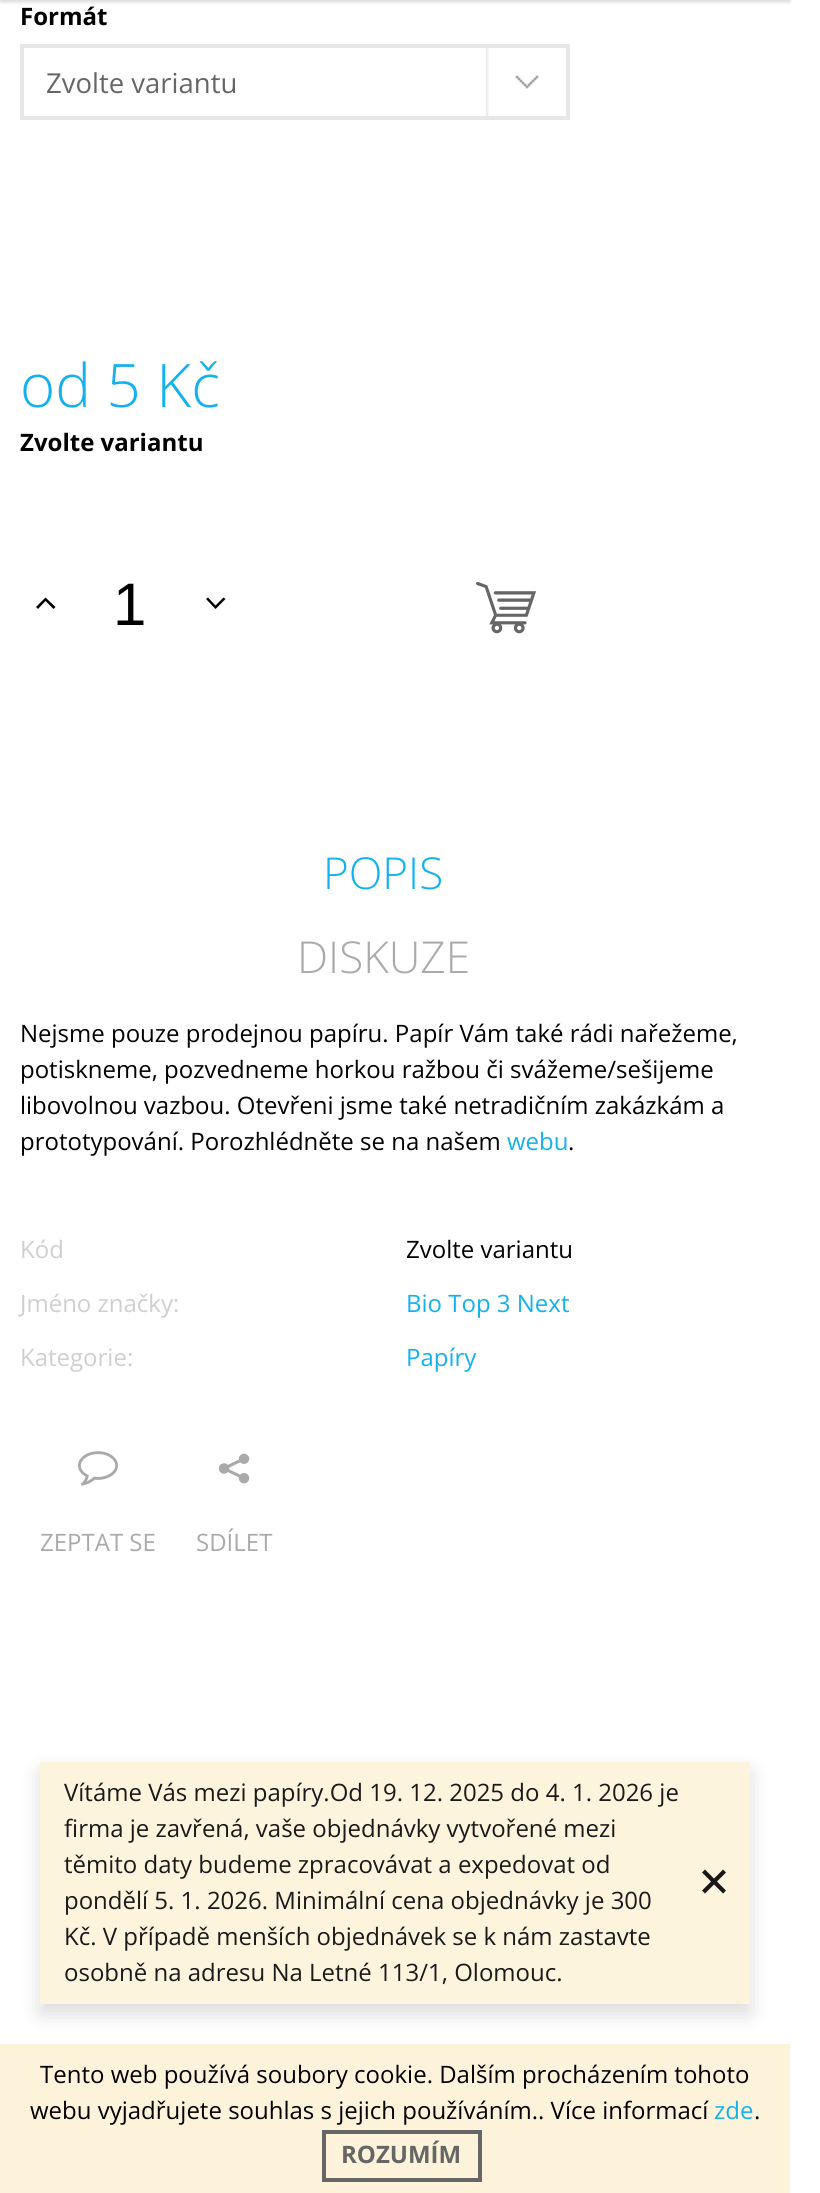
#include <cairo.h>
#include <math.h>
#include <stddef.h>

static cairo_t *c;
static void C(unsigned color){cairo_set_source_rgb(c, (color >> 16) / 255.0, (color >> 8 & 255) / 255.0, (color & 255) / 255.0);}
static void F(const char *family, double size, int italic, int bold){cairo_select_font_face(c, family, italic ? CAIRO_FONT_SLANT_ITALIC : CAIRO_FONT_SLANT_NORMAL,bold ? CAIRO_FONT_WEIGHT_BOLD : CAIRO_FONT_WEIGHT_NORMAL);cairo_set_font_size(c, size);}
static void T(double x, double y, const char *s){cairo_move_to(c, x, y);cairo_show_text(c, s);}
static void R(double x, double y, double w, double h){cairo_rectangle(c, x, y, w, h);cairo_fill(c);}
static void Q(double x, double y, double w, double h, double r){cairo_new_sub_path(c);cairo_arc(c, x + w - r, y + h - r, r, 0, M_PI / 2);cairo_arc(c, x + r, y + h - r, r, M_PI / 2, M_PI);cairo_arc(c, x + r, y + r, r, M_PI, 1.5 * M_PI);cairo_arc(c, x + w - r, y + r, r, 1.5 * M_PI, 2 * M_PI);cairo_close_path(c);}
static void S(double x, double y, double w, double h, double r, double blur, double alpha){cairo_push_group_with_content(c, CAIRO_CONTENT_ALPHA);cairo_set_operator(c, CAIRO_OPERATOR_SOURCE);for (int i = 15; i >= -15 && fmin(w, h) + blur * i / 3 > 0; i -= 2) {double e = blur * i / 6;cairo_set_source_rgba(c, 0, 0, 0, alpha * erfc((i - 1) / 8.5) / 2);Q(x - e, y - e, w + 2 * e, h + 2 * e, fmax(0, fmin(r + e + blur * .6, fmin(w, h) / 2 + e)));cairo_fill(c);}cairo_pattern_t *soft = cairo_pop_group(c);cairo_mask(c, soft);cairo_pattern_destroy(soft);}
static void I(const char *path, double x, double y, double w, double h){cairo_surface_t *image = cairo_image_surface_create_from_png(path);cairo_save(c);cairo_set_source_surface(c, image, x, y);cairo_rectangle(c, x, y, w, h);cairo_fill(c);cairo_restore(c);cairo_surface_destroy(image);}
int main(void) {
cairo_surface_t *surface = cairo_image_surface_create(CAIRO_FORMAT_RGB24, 820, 2193);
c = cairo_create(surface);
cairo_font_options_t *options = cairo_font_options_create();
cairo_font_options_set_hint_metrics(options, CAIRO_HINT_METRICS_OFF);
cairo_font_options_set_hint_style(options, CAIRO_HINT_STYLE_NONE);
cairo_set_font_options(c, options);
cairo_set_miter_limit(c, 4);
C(0xffffff);
cairo_paint(c);
C(0x000000);
S(0,-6,790,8,0,2,.16);
F("Open Sans",24,0,1);
C(0x000000);
T(20,25,"Formát");
I("1.png",486,48,53,68);
cairo_rectangle(c,22,46,546,72);
C(0xe7e7e7);
cairo_set_line_width(c,4);
cairo_stroke(c);
F("Open Sans",27.5,0,0);
C(0x666666);
T(46,93,"Zvolte variantu");
F("Open Sans Light",60,0,0);
C(0x14b1ef);
T(20,407,"od 5 Kč");
F("Open Sans",24,0,1);
C(0x000000);
T(20,451,"Zvolte variantu");
cairo_new_path(c);
cairo_move_to(c,36,607);
cairo_line_to(c,38,609);
cairo_line_to(c,45.5,601);
cairo_line_to(c,53.5,609);
cairo_line_to(c,55.5,607);
cairo_line_to(c,45.5,597.5);
cairo_close_path(c);
cairo_fill(c);
F("Liberation Sans",60,0,0);
T(113,625,"1");
cairo_new_path(c);
cairo_move_to(c,206,599);
cairo_line_to(c,208,597.5);
cairo_line_to(c,215.5,605.5);
cairo_line_to(c,223.5,597.5);
cairo_line_to(c,225.5,599);
cairo_line_to(c,215.5,609);
cairo_close_path(c);
cairo_fill(c);
I("2.png",476,581,60,53);
F("Open Sans Light",44,0,0);
C(0x14b1ef);
T(323,889,"POPIS");
C(0xaaaaaa);
T(297,973,"DISKUZE");
F("Open Sans",24,0,0);
C(0x000000);
T(20,1042,"Nejsme pouze prodejnou papíru. Papír Vám také rádi nařežeme,");
T(20,1078,"potiskneme, pozvedneme horkou ražbou či svážeme/sešijeme");
T(20,1114,"libovolnou vazbou. Otevřeni jsme také netradičním zakázkám a");
T(20,1150,"prototypování. Porozhlédněte se na našem");
C(0x14b1ef);
T(507,1150,"webu");
C(0x000000);
T(568,1150,".");
C(0xcfcfcf);
T(20,1258,"Kód");
C(0x000000);
T(406,1258,"Zvolte variantu");
C(0xcfcfcf);
T(20,1312,"Jméno značky:");
C(0x14b1ef);
T(406,1312,"Bio Top 3 Next");
C(0xcfcfcf);
T(20,1366,"Kategorie:");
C(0x14b1ef);
T(406,1366,"Papíry");
I("3.png",78,1451,40,35);
C(0xaaaaaa);
T(40,1551,"ZEPTAT SE");
I("4.png",218,1453,32,31);
T(196,1551,"SDÍLET");
cairo_save(c);
cairo_set_fill_rule(c,CAIRO_FILL_RULE_EVEN_ODD);
cairo_new_path(c);
cairo_move_to(c,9,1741);
cairo_line_to(c,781,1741);
cairo_line_to(c,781,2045);
cairo_line_to(c,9,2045);
cairo_close_path(c);
cairo_move_to(c,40,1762);
cairo_line_to(c,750,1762);
cairo_line_to(c,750,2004);
cairo_line_to(c,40,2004);
cairo_close_path(c);
cairo_clip(c);
C(0x000000);
S(40,1772,710,242,0,10,.14);
cairo_restore(c);
cairo_set_source_rgba(c,0.992,0.953,0.855,0.9);
R(40,1762,710,242);
C(0x1a1a1a);
T(64,1801,"Vítáme Vás mezi papíry.Od 19. 12. 2025 do 4. 1. 2026 je");
T(64,1837,"firma je zavřená, vaše objednávky vytvořené mezi");
T(64,1873,"těmito daty budeme zpracovávat a expedovat od");
T(64,1909,"pondělí 5. 1. 2026. Minimální cena objednávky je 300");
T(64,1945,"Kč. V případě menších objednávek se k nám zastavte");
T(64,1981,"osobně na adresu Na Letné 113/1, Olomouc.");
I("5.png",702,1869,24,25);
C(0xfdf3da);
R(0,2044,790,149);
C(0x000000);
T(40,2083,"Tento web používá soubory cookie. Dalším procházením tohoto");
T(30,2119,"webu vyjadřujete souhlas s jejich používáním.. Více informací");
C(0x14b1ef);
T(714,2119,"zde");
C(0x000000);
T(754,2119,".");
cairo_rectangle(c,324,2132,156,48);
C(0x666666);
cairo_stroke(c);
F("Open Sans",24,0,1);
T(341,2163,"ROZUMÍM");
cairo_surface_write_to_png(surface, "o.png");
cairo_font_options_destroy(options);
cairo_destroy(c);
cairo_surface_destroy(surface);
return 0;
}
